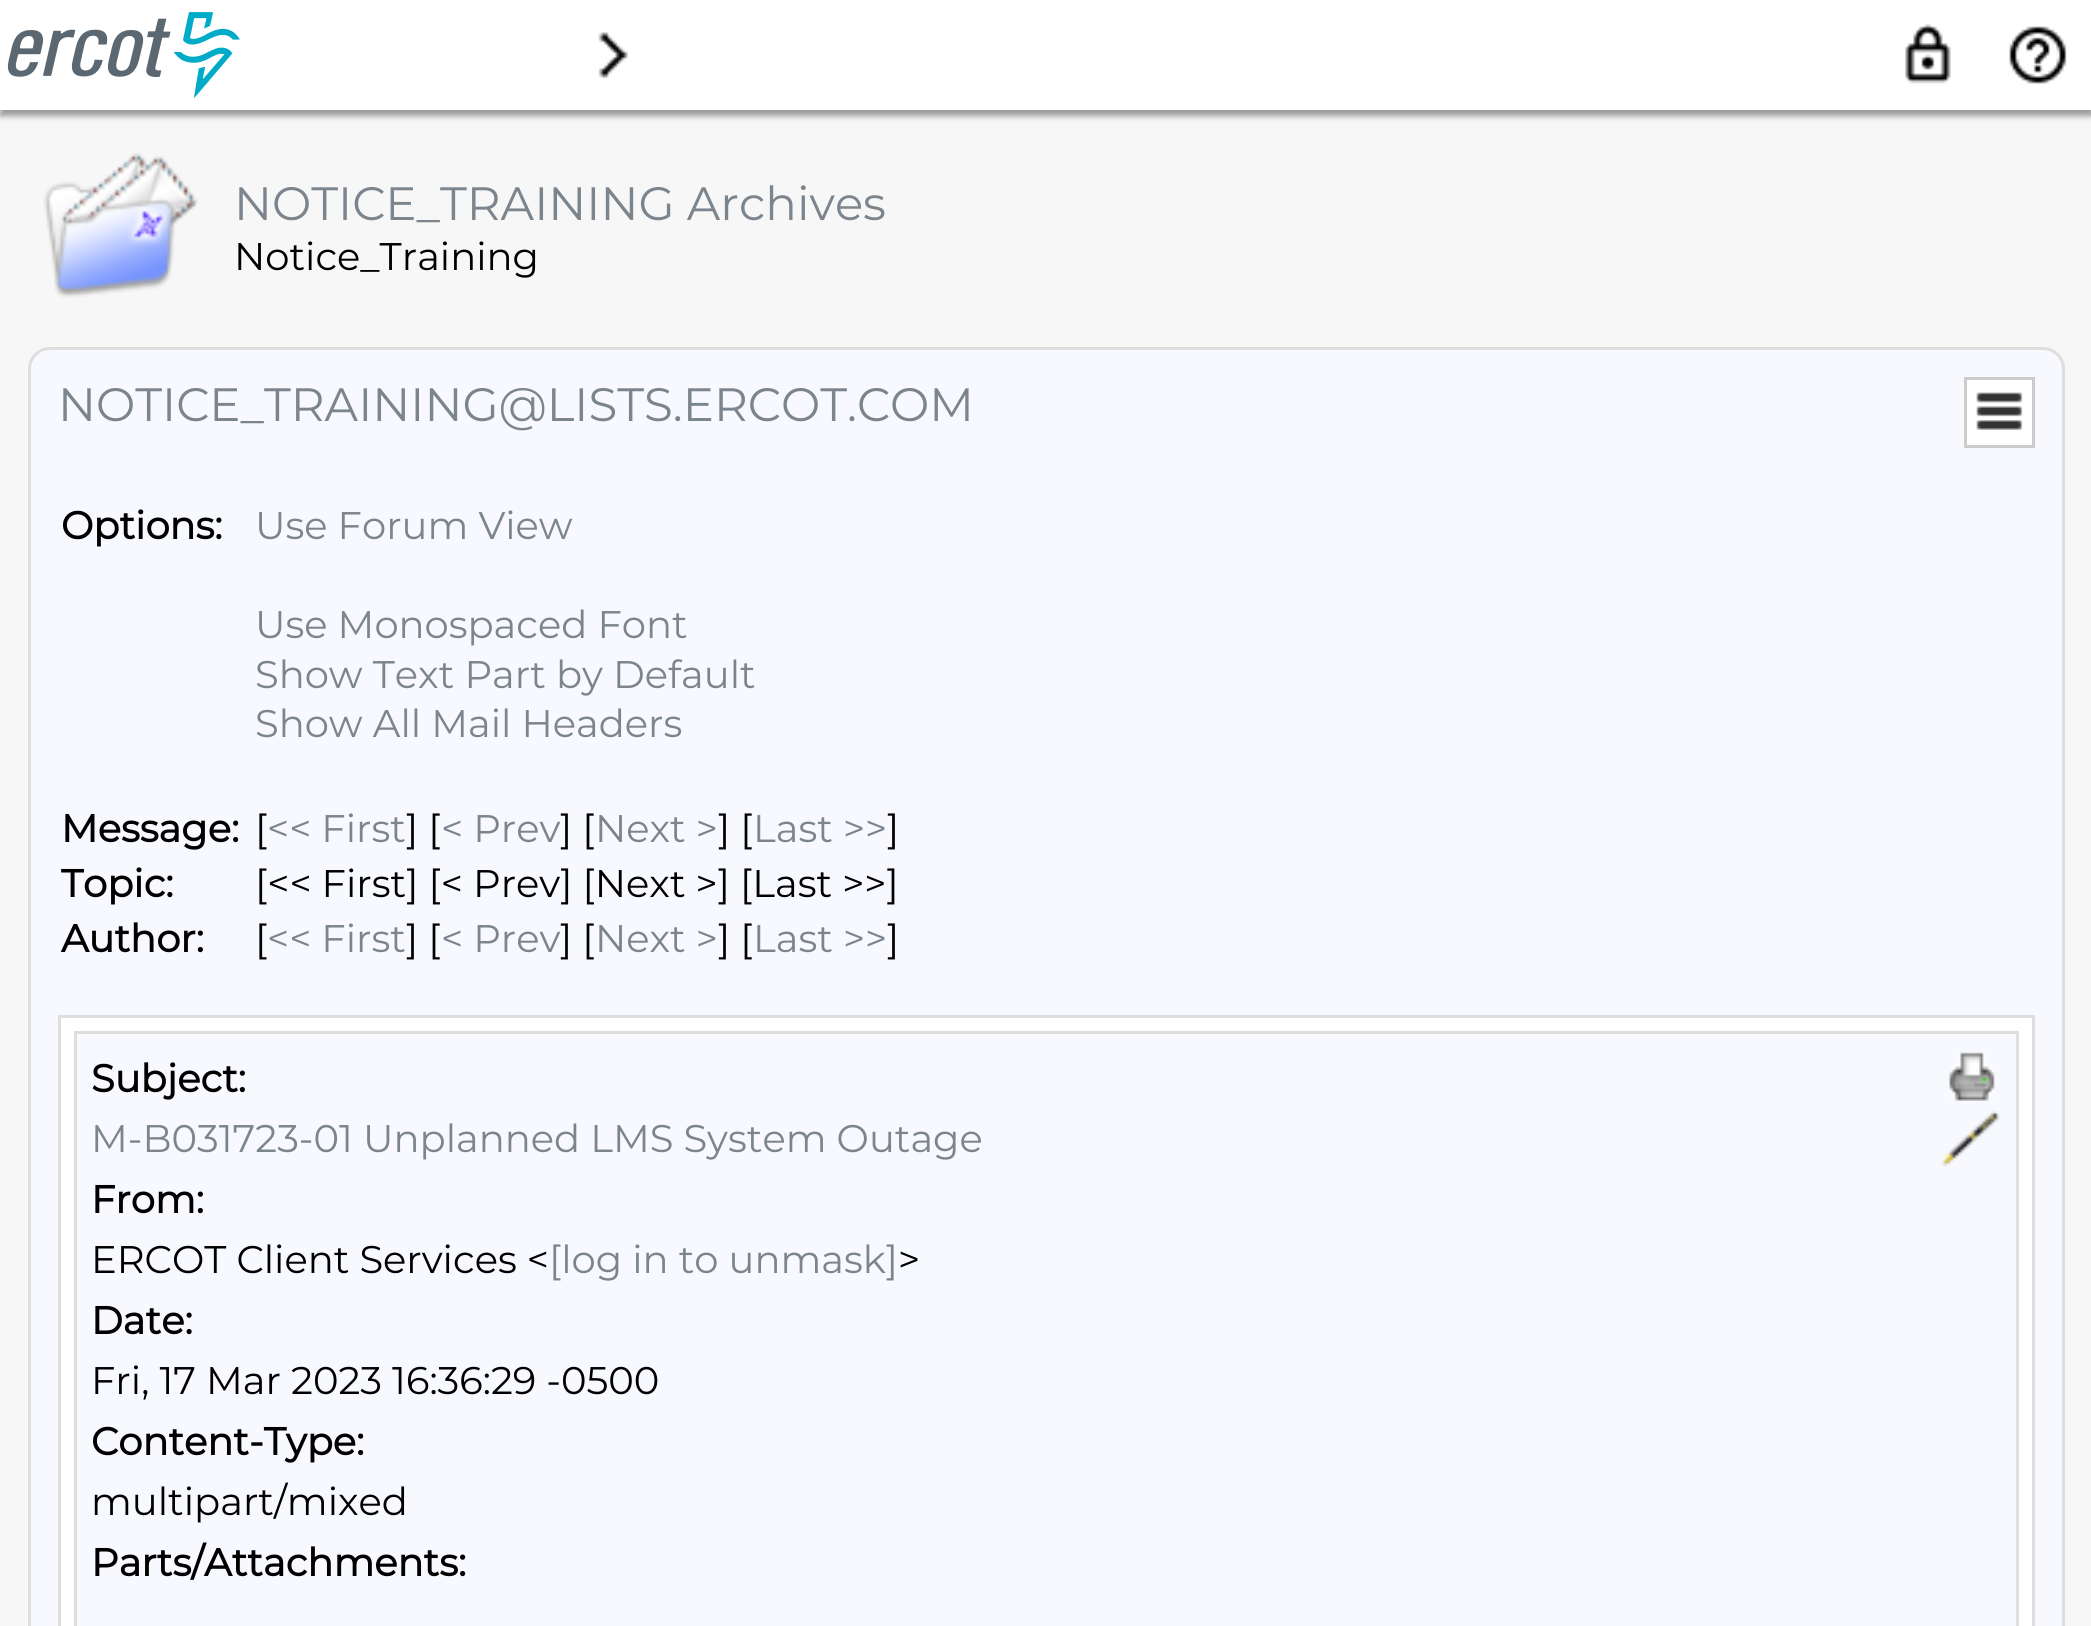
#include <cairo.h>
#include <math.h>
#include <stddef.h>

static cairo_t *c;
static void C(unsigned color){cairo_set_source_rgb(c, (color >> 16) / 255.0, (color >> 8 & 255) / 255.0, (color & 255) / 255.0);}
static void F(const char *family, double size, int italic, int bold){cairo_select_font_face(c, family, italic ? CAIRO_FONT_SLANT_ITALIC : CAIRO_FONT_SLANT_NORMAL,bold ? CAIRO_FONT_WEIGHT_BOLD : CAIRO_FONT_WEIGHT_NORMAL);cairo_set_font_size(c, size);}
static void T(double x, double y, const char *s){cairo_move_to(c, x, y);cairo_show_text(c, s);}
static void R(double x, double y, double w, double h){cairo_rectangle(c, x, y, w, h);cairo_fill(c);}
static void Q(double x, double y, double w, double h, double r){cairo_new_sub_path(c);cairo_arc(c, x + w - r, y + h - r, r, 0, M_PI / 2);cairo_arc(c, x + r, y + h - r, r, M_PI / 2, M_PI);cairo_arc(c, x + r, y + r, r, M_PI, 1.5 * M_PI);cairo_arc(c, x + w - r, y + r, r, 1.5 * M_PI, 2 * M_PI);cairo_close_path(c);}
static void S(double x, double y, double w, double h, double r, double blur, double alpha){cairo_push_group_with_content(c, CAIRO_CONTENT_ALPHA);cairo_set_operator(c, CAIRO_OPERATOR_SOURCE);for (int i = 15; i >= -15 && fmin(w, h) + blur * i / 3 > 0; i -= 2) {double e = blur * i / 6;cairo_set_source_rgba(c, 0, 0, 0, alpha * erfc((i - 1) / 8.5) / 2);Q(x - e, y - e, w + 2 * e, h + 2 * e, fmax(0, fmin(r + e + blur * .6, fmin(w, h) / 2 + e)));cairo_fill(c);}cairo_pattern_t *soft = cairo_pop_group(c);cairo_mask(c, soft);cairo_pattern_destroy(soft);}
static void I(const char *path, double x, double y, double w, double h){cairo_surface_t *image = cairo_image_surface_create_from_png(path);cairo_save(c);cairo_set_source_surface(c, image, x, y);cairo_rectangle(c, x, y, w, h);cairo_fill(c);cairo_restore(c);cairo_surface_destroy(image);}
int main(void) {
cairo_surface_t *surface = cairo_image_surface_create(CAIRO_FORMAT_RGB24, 2091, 1626);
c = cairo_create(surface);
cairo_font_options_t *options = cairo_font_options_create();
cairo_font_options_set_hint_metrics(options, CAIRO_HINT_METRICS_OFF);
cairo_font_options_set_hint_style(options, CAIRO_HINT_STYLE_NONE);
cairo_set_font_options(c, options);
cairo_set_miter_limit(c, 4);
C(0xf7f7f7);
cairo_paint(c);
C(0x999999);
S(0,6,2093,110,0,3,1);
C(0xffffff);
R(0,0,2091,110);
I("1.png",7,12,233,86);
I("2.png",598,32,30,46);
I("3.png",1905,24,46,60);
I("4.png",2009,26,58,58);
I("5.png",43,153,156,145);
F("Montserrat Thin",46.75,0,0);
C(0x7c858d);
T(234,220,"NOTICE_TRAINING Archives");
F("Montserrat Thin",38.5,0,0);
C(0x000000);
T(234,270,"Notice_Training");
C(0xf7f9fe);
Q(29.5,348.5,2034,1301,20.5);
cairo_fill_preserve(c);
C(0xdedede);
cairo_set_line_width(c,3);
cairo_stroke(c);
F("Montserrat Thin",46.75,0,0);
C(0x7c858d);
T(58,421,"NOTICE_TRAINING@LISTS.ERCOT.COM");
C(0xffffff);
cairo_rectangle(c,1965.5,378.5,68,68);
cairo_fill_preserve(c);
C(0xcccccc);
cairo_stroke(c);
I("6.png",1976,392,47,38);
F("Montserrat",38.5,0,1);
C(0x000000);
T(61,539,"Options:");
F("Montserrat Thin",38.5,0,0);
C(0x7c858d);
T(255,539,"Use Forum View");
T(255,638,"Use Monospaced Font");
T(255,688,"Show Text Part by Default");
T(255,737,"Show All Mail Headers");
F("Montserrat",38.5,0,1);
C(0x000000);
T(61,842,"Message:");
F("Montserrat Thin",38.5,0,0);
T(255,842,"[");
C(0x7c858d);
T(267,842,"<< First");
C(0x000000);
T(406,842,"] [");
C(0x7c858d);
T(441,842,"< Prev");
C(0x000000);
T(560,842,"] [");
C(0x7c858d);
T(595,842,"Next >");
C(0x000000);
T(718,842,"] [");
C(0x7c858d);
T(753,842,"Last >>");
C(0x000000);
T(887,842,"]");
F("Montserrat",38.5,0,1);
T(61,897,"Topic:");
F("Montserrat Thin",38.5,0,0);
T(255,897,"[<< First] [< Prev] [Next >] [Last >>]");
F("Montserrat",38.5,0,1);
T(61,952,"Author:");
F("Montserrat Thin",38.5,0,0);
T(255,952,"[");
C(0x7c858d);
T(267,952,"<< First");
C(0x000000);
T(406,952,"] [");
C(0x7c858d);
T(441,952,"< Prev");
C(0x000000);
T(560,952,"] [");
C(0x7c858d);
T(595,952,"Next >");
C(0x000000);
T(718,952,"] [");
C(0x7c858d);
T(753,952,"Last >>");
C(0x000000);
T(887,952,"]");
cairo_rectangle(c,59.5,1016.5,1974,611);
C(0xdedede);
cairo_stroke(c);
C(0xffffff);
R(61,1018,1971,608);
cairo_rectangle(c,75.5,1032.5,1942,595);
C(0xdedede);
cairo_stroke(c);
C(0xf7f9fe);
R(77,1034,1939,592);
F("Montserrat",38.5,0,1);
C(0x000000);
T(91,1092,"Subject:");
F("Montserrat Thin",38.5,0,0);
C(0x7c858d);
T(91,1152,"M-B031723-01 Unplanned LMS System Outage");
F("Montserrat",38.5,0,1);
C(0x000000);
T(91,1213,"From:");
F("Montserrat Thin",38.5,0,0);
T(91,1273,"ERCOT Client Services <");
C(0x7c858d);
T(549,1273,"[log in to unmask]");
C(0x000000);
T(898,1273,">");
F("Montserrat",38.5,0,1);
T(91,1334,"Date:");
F("Montserrat Thin",38.5,0,0);
T(91,1394,"Fri, 17 Mar 2023 16:36:29 -0500");
F("Montserrat",38.5,0,1);
T(91,1455,"Content-Type:");
F("Montserrat Thin",38.5,0,0);
T(91,1515,"multipart/mixed");
F("Montserrat",38.5,0,1);
T(91,1576,"Parts/Attachments:");
I("7.png",1949,1052,46,49);
I("8.png",1941,1110,59,57);
cairo_surface_write_to_png(surface, "o.png");
cairo_font_options_destroy(options);
cairo_destroy(c);
cairo_surface_destroy(surface);
return 0;
}
